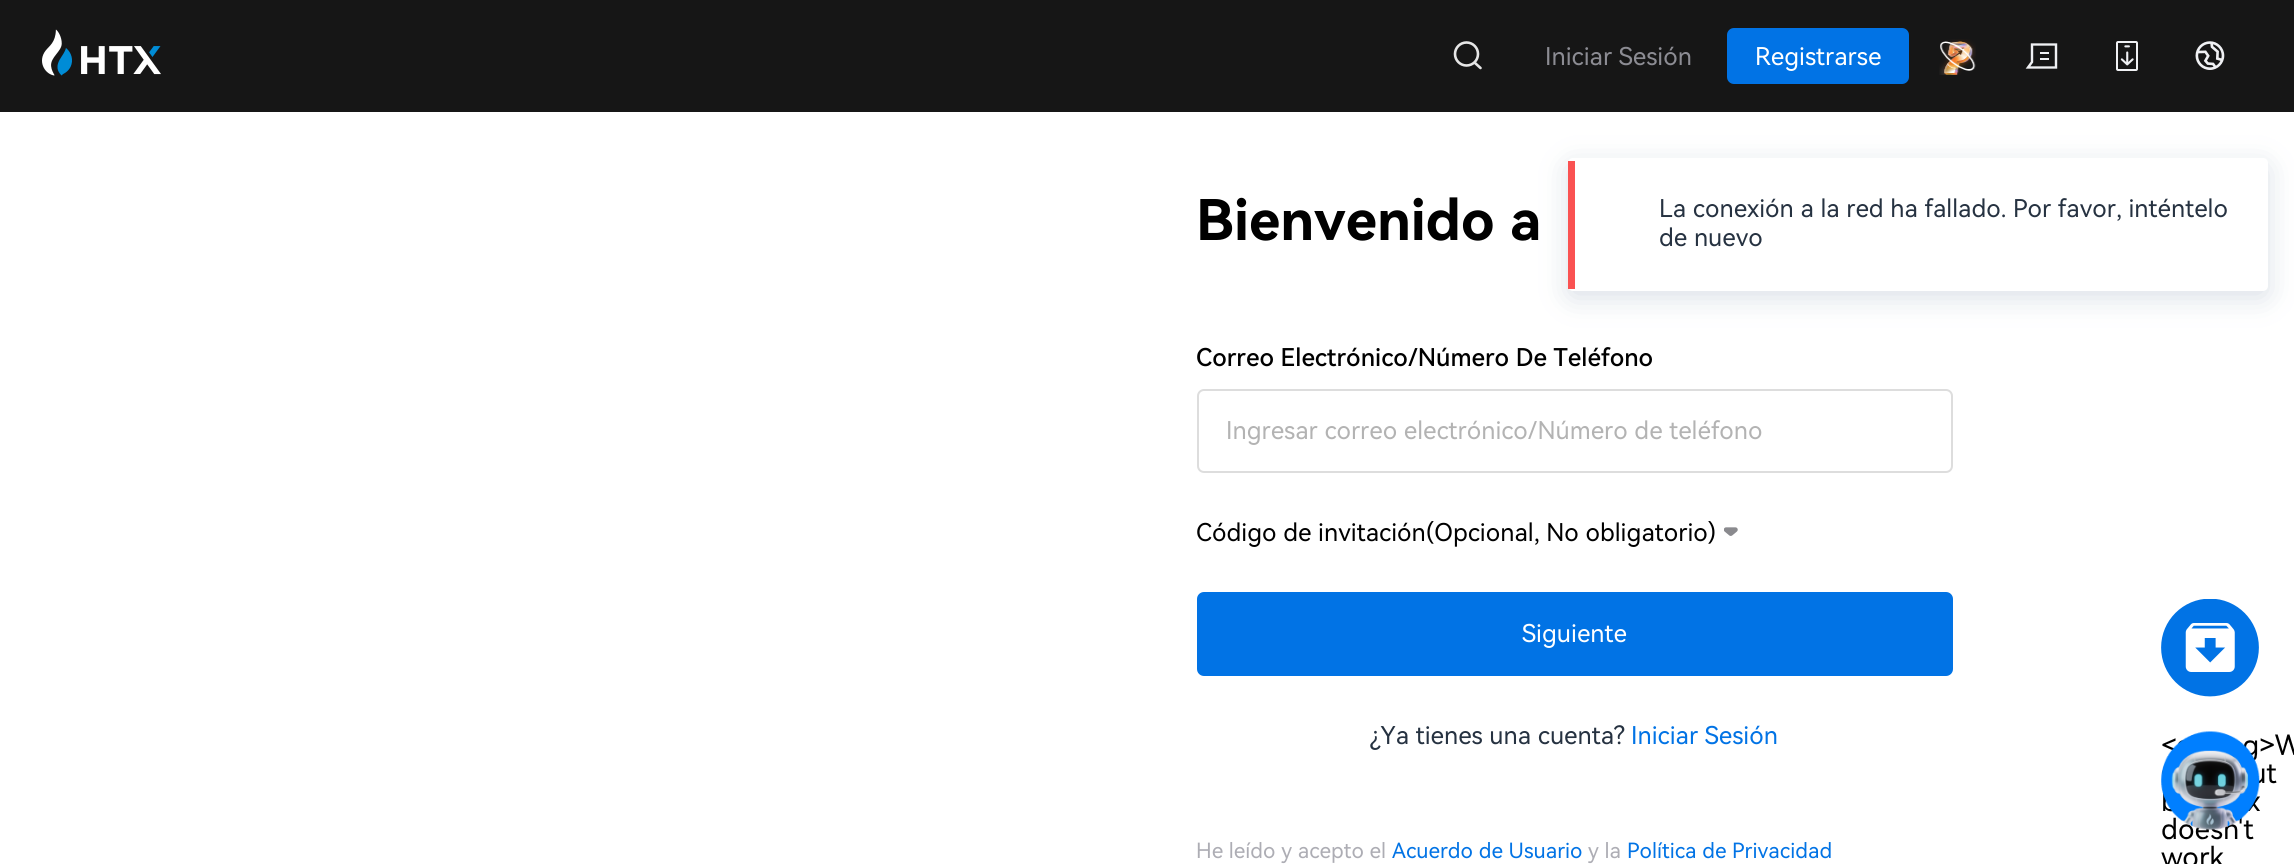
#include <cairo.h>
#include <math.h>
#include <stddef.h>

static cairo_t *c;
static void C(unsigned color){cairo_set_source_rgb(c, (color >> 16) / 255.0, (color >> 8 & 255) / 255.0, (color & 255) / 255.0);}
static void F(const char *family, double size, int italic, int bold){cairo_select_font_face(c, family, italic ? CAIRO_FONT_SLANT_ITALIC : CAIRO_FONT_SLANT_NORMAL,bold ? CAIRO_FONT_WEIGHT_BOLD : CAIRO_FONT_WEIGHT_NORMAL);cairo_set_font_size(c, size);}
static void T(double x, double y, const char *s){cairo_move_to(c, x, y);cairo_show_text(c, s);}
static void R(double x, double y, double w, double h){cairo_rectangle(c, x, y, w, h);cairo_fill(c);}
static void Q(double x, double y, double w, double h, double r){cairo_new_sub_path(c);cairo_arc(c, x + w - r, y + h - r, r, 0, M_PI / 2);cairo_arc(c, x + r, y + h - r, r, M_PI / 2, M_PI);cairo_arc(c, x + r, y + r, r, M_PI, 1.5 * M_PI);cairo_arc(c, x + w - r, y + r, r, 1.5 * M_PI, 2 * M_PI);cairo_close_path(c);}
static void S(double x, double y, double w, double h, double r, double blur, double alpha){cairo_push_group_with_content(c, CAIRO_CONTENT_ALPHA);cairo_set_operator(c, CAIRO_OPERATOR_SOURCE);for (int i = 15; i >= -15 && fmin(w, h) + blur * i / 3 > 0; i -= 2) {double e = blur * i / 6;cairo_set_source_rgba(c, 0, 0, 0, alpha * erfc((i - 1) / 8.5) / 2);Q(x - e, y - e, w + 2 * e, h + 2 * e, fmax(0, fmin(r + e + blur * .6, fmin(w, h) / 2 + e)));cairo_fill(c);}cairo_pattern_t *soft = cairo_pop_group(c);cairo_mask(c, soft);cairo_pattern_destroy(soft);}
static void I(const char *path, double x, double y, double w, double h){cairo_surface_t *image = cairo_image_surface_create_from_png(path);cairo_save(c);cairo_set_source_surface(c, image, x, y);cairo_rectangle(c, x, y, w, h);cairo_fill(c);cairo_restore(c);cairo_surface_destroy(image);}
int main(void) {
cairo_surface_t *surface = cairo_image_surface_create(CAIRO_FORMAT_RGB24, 2294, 864);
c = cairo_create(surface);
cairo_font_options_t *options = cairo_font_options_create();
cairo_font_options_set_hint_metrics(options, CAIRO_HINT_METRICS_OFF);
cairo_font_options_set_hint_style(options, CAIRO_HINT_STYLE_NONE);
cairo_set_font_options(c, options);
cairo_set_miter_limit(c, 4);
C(0xffffff);
cairo_paint(c);
C(0x161616);
R(0,0,2294,112);
I("1.png",42,29,119,47);
cairo_arc(c,1466.5,54,11.5,0,2 * M_PI);
C(0xe6e6e6);
cairo_set_line_width(c,2.6);
cairo_stroke(c);
cairo_new_path(c);
cairo_move_to(c,1475,63);
cairo_line_to(c,1480.5,68);
cairo_set_line_cap(c,CAIRO_LINE_CAP_ROUND);
cairo_stroke(c);
F("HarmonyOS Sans",24.5,0,0);
C(0x8c8c93);
T(1545,65,"Iniciar Sesión");
C(0x0173e5);
Q(1727,28,182,56,7);
cairo_fill(c);
C(0xffffff);
T(1755,65,"Registrarse");
I("2.png",1939,39,37,36);
cairo_new_path(c);
cairo_move_to(c,2032,44.5);
cairo_line_to(c,2056,44.5);
cairo_line_to(c,2056,67.5);
cairo_line_to(c,2028,67.5);
cairo_line_to(c,2032,62);
cairo_close_path(c);
C(0xf0f1f4);
cairo_set_line_width(c,2.4);
cairo_set_line_cap(c,CAIRO_LINE_CAP_BUTT);
cairo_stroke(c);
R(2040,52,9,2);
R(2040,58,9,2);
I("3.png",2116,41,22,30);
I("4.png",2195,41,30,29);
F("HarmonyOS Sans",56,0,1);
C(0x000000);
T(1196,240,"Bienvenido a");
F("HarmonyOS Sans Medium",24.5,0,0);
T(1196,366,"Correo Electrónico/Número De Teléfono");
Q(1198,390,754,82,6);
C(0xdddddd);
cairo_set_line_width(c,2);
cairo_stroke(c);
F("HarmonyOS Sans",24.5,0,0);
C(0xb3b3b3);
T(1226,439,"Ingresar correo electrónico/Número de teléfono");
C(0x000000);
T(1196,541,"Código de invitación(Opcional, No obligatorio)");
I("5.png",1724,527,14,9);
C(0x0173e5);
Q(1197,592,756,84,7);
cairo_fill(c);
C(0xffffff);
T(1522,642,"Siguiente");
C(0x263241);
T(1370,744,"¿Ya tienes una cuenta?");
C(0x0173e5);
T(1631,744,"Iniciar Sesión");
F("HarmonyOS Sans",21,0,0);
C(0xadadb4);
T(1196,858,"He leído y acepto el");
C(0x0173e5);
T(1392,858,"Acuerdo de Usuario");
C(0xadadb4);
T(1588,858,"y la");
C(0x0173e5);
T(1627,858,"Política de Privacidad");
I("6.png",2161,599,98,98);
C(0x456189);
S(1568,165,700,133,5,14,.2);
C(0xffffff);
Q(1568,158,700,133,5);
cairo_fill(c);
C(0xfa5252);
R(1568,161,7,128);
F("HarmonyOS Sans",24.5,0,0);
C(0x263241);
T(1659,217,"La conexión a la red ha fallado. Por favor, inténtelo");
T(1659,246,"de nuevo");
I("7.png",2161,731,133,133);
cairo_surface_write_to_png(surface, "o.png");
cairo_font_options_destroy(options);
cairo_destroy(c);
cairo_surface_destroy(surface);
return 0;
}
